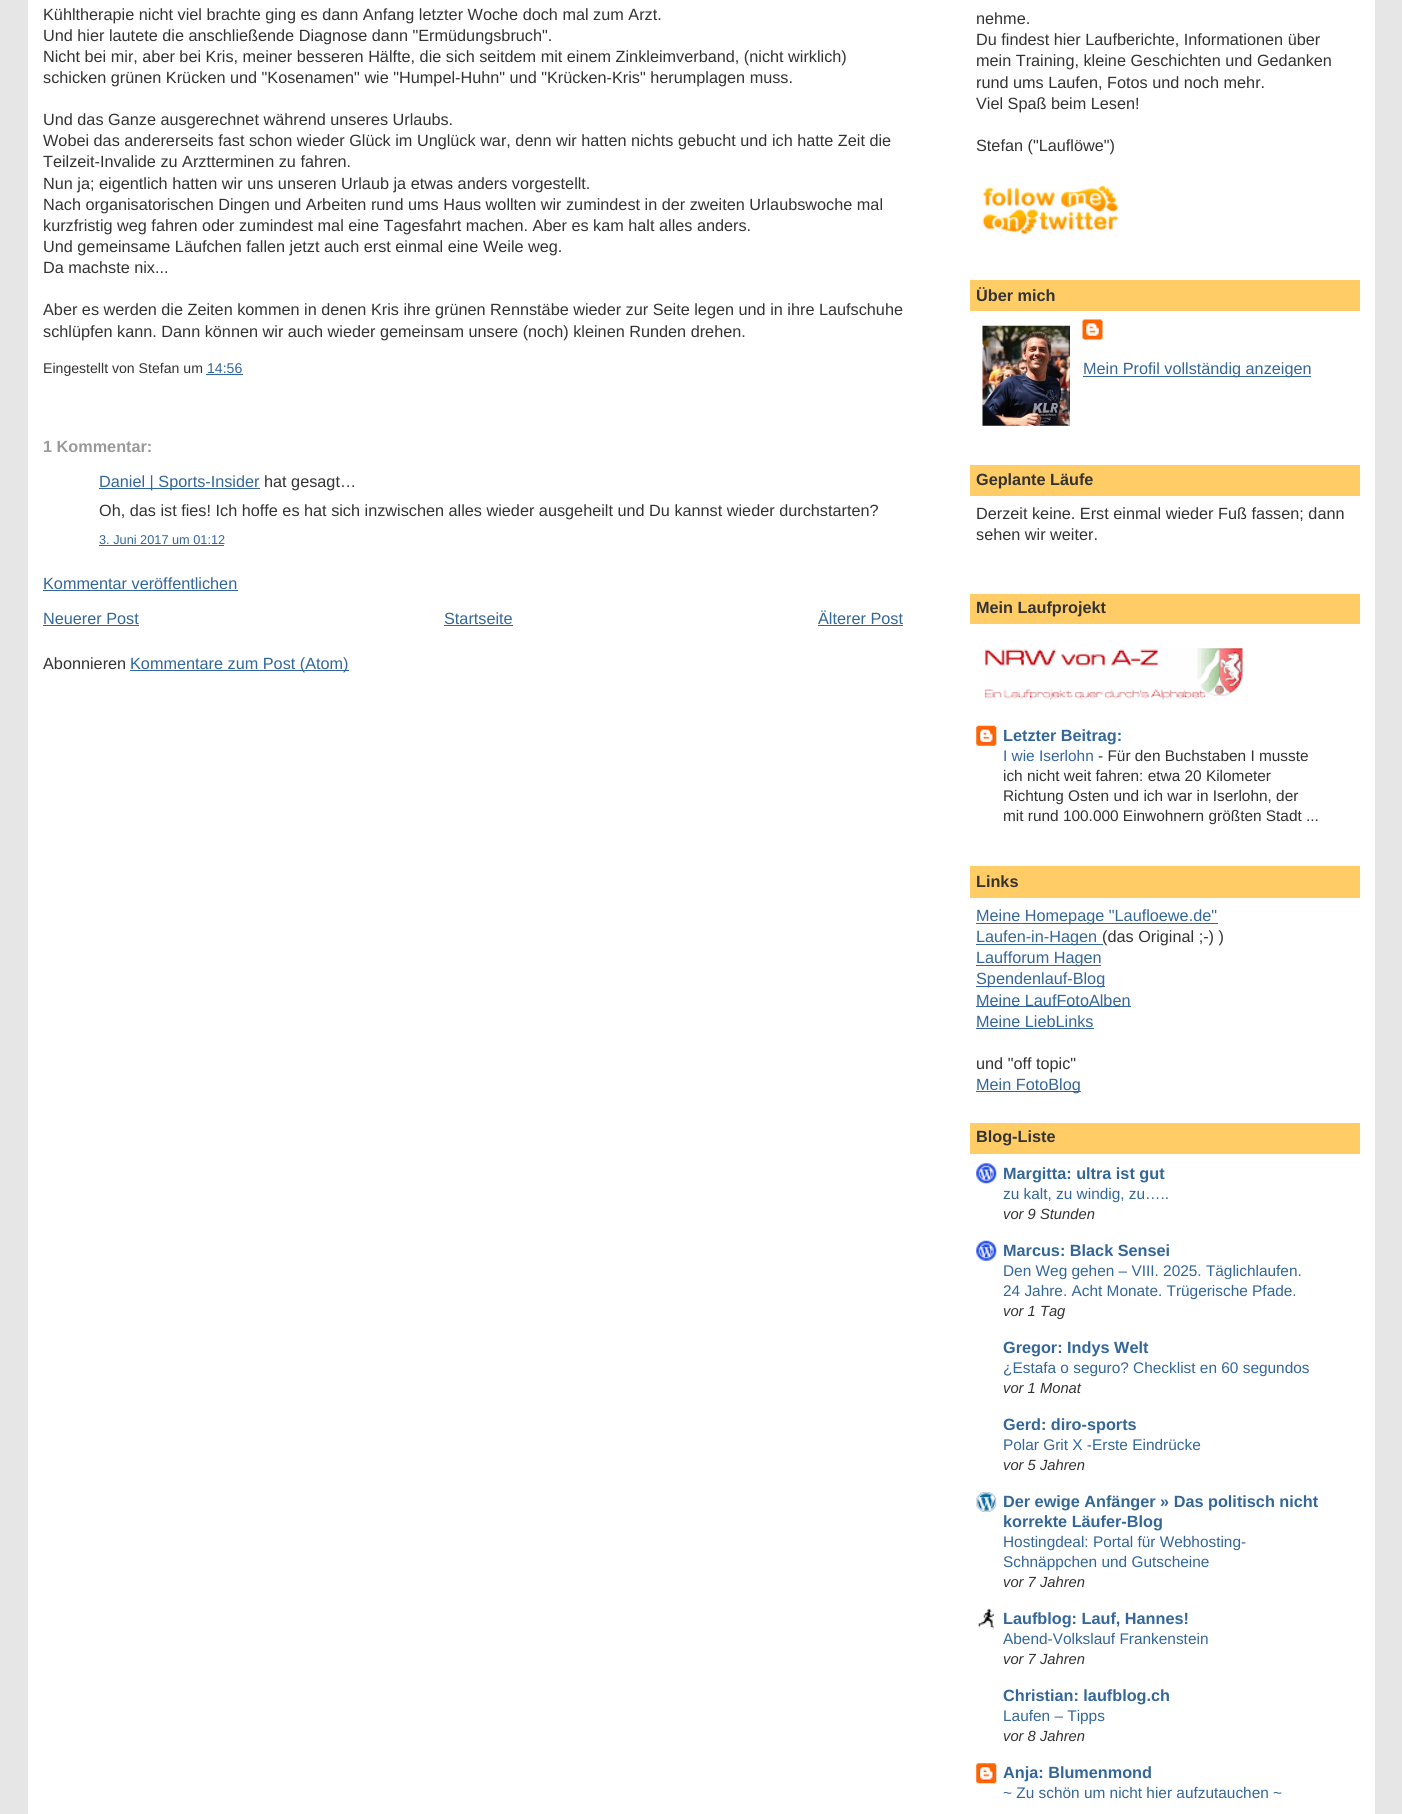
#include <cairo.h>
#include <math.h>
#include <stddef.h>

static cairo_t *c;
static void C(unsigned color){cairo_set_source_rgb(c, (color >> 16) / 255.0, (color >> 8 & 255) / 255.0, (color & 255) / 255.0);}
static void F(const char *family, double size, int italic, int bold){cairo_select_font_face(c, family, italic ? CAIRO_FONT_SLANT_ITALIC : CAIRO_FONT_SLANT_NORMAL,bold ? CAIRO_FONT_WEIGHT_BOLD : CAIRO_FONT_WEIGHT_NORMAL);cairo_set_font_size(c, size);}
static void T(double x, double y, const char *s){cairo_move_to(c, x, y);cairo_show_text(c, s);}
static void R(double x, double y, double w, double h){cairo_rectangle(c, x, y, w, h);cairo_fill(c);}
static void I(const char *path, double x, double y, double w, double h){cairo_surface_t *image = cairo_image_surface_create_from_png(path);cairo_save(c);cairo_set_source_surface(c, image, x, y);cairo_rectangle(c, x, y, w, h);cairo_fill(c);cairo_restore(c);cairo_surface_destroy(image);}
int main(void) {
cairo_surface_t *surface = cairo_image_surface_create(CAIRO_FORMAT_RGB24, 1402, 1814);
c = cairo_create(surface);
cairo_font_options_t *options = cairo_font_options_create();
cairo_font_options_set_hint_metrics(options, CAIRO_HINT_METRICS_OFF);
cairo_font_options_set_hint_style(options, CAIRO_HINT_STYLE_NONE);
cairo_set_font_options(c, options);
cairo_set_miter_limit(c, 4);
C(0xe6e6e6);
cairo_paint(c);
C(0xffffff);
R(28,0,1347,1814);
F("Liberation Sans",16.25,0,0);
C(0x333333);
T(43,20,"Kühltherapie nicht viel brachte ging es dann Anfang letzter Woche doch mal zum Arzt.");
T(43,41,"Und hier lautete die anschließende Diagnose dann \"Ermüdungsbruch\".");
T(43,62,"Nicht bei mir, aber bei Kris, meiner besseren Hälfte, die sich seitdem mit einem Zinkleimverband, (nicht wirklich)");
T(43,83,"schicken grünen Krücken und \"Kosenamen\" wie \"Humpel-Huhn\" und \"Krücken-Kris\" herumplagen muss.");
T(43,125,"Und das Ganze ausgerechnet während unseres Urlaubs.");
T(43,146,"Wobei das andererseits fast schon wieder Glück im Unglück war, denn wir hatten nichts gebucht und ich hatte Zeit die");
T(43,167,"Teilzeit-Invalide zu Arztterminen zu fahren.");
T(43,189,"Nun ja; eigentlich hatten wir uns unseren Urlaub ja etwas anders vorgestellt.");
T(43,210,"Nach organisatorischen Dingen und Arbeiten rund ums Haus wollten wir zumindest in der zweiten Urlaubswoche mal");
T(43,231,"kurzfristig weg fahren oder zumindest mal eine Tagesfahrt machen. Aber es kam halt alles anders.");
T(43,252,"Und gemeinsame Läufchen fallen jetzt auch erst einmal eine Weile weg.");
T(43,273,"Da machste nix...");
T(43,315,"Aber es werden die Zeiten kommen in denen Kris ihre grünen Rennstäbe wieder zur Seite legen und in ihre Laufschuhe");
T(43,337,"schlüpfen kann. Dann können wir auch wieder gemeinsam unsere (noch) kleinen Runden drehen.");
F("Liberation Sans",14.1,0,0);
T(43,373,"Eingestellt von Stefan um");
cairo_new_path(c);
cairo_move_to(c,207,374.5);
cairo_line_to(c,242,374.5);
C(0x336699);
cairo_set_line_width(c,1.2);
cairo_set_dash(c,(double[]){1.25,1.25},2,0);
cairo_stroke(c);
T(207,373,"14:56");
R(206,374,37,1);
F("Liberation Sans",16.25,0,1);
C(0x999999);
T(43,452,"1 Kommentar:");
C(0x336699);
R(99,488,161,1);
F("Liberation Sans",16.25,0,0);
T(99,487,"Daniel | Sports-Insider");
C(0x333333);
T(264,487,"hat gesagt…");
T(99,516,"Oh, das ist fies! Ich hoffe es hat sich inzwischen alles wieder ausgeheilt und Du kannst wieder durchstarten?");
F("Liberation Sans",12.75,0,0);
C(0x336699);
T(99,544,"3. Juni 2017 um 01:12");
R(99,545,125,1);
F("Liberation Sans",16.25,0,0);
T(43,589,"Kommentar veröffentlichen");
R(43,590,195,1);
T(43,624,"Neuerer Post");
R(43,625,96,1);
T(444,624,"Startseite");
R(444,625,69,1);
T(818,624,"Älterer Post");
R(818,625,85,1);
C(0x333333);
T(43,669,"Abonnieren");
C(0x336699);
R(130,670,219,1);
T(130,669,"Kommentare zum Post (Atom)");
C(0x333333);
T(976,24,"nehme.");
T(976,45,"Du findest hier Laufberichte, Informationen über");
T(976,66,"mein Training, kleine Geschichten und Gedanken");
T(976,88,"rund ums Laufen, Fotos und noch mehr.");
T(976,109,"Viel Spaß beim Lesen!");
T(976,151,"Stefan (\"Lauflöwe\")");
I("1.png",982,185,137,50);
C(0xffcc66);
R(970,280,390,31);
F("Liberation Sans",16.25,0,1);
C(0x333333);
T(976,301,"Über mich");
I("2.png",982,325,88,101);
I("3.png",1082,319,21,21);
C(0x336699);
R(1083,376,228,1);
F("Liberation Sans",16.25,0,0);
T(1083,374,"Mein Profil vollständig anzeigen");
C(0xffcc66);
R(970,465,390,31);
F("Liberation Sans",16.25,0,1);
C(0x333333);
T(976,485,"Geplante Läufe");
F("Liberation Sans",16.25,0,0);
T(976,519,"Derzeit keine. Erst einmal wieder Fuß fassen; dann");
T(976,540,"sehen wir weiter.");
C(0xffcc66);
R(970,594,390,30);
F("Liberation Sans",16.25,0,1);
C(0x333333);
T(976,613,"Mein Laufprojekt");
I("4.png",984,648,259,52);
I("5.png",976,725,21,21);
C(0x336699);
T(1003,741,"Letzter Beitrag:");
F("Liberation Sans",15.4,0,0);
T(1003,761,"I wie Iserlohn");
C(0x333333);
T(1098,761,"- Für den Buchstaben I musste");
T(1003,781,"ich nicht weit fahren: etwa 20 Kilometer");
T(1003,801,"Richtung Osten und ich war in Iserlohn, der");
T(1003,821,"mit rund 100.000 Einwohnern größten Stadt ...");
C(0xffcc66);
R(970,866,390,32);
F("Liberation Sans",16.25,0,1);
C(0x333333);
T(976,887,"Links");
C(0x336699);
R(976,923,242,1);
F("Liberation Sans",16.25,0,0);
T(976,921,"Meine Homepage \"Laufloewe.de\"");
R(976,944,127,1);
T(976,942,"Laufen-in-Hagen");
C(0x333333);
T(1102,942,"(das Original ;-) )");
C(0x336699);
R(976,965,125,1);
T(976,963,"Laufforum Hagen");
R(976,986,129,1);
T(976,984,"Spendenlauf-Blog");
R(976,1006,155,1);
T(976,1006,"Meine LaufFotoAlben");
T(976,1027,"Meine LiebLinks");
R(976,1028,118,1);
C(0x333333);
T(976,1069,"und \"off topic\"");
C(0x336699);
R(976,1091,105,1);
T(976,1090,"Mein FotoBlog");
C(0xffcc66);
R(970,1123,390,31);
F("Liberation Sans",16.25,0,1);
C(0x333333);
T(976,1142,"Blog-Liste");
I("6.png",976,1163,21,21);
C(0x336699);
T(1003,1179,"Margitta: ultra ist gut");
F("Liberation Sans",15.4,0,0);
T(1003,1199,"zu kalt, zu windig, zu…..");
F("Liberation Sans",14.75,1,0);
C(0x333333);
T(1003,1219,"vor 9 Stunden");
I("7.png",976,1240,21,21);
F("Liberation Sans",16.25,0,1);
C(0x336699);
T(1003,1256,"Marcus: Black Sensei");
F("Liberation Sans",15.4,0,0);
T(1003,1276,"Den Weg gehen – VIII. 2025. Täglichlaufen.");
T(1003,1296,"24 Jahre. Acht Monate. Trügerische Pfade.");
F("Liberation Sans",14.75,1,0);
C(0x333333);
T(1003,1316,"vor 1 Tag");
F("Liberation Sans",16.25,0,1);
C(0x336699);
T(1003,1353,"Gregor: Indys Welt");
F("Liberation Sans",15.4,0,0);
T(1003,1373,"¿Estafa o seguro? Checklist en 60 segundos");
F("Liberation Sans",14.75,1,0);
C(0x333333);
T(1003,1393,"vor 1 Monat");
F("Liberation Sans",16.25,0,1);
C(0x336699);
T(1003,1430,"Gerd: diro-sports");
F("Liberation Sans",15.4,0,0);
T(1003,1450,"Polar Grit X -Erste Eindrücke");
F("Liberation Sans",14.75,1,0);
C(0x333333);
T(1003,1470,"vor 5 Jahren");
I("8.png",976,1492,21,20);
F("Liberation Sans",16.25,0,1);
C(0x336699);
T(1003,1507,"Der ewige Anfänger » Das politisch nicht");
T(1003,1527,"korrekte Läufer-Blog");
F("Liberation Sans",15.4,0,0);
T(1003,1547,"Hostingdeal: Portal für Webhosting-");
T(1003,1567,"Schnäppchen und Gutscheine");
F("Liberation Sans",14.75,1,0);
C(0x333333);
T(1003,1587,"vor 7 Jahren");
I("9.png",978,1608,16,21);
F("Liberation Sans",16.25,0,1);
C(0x336699);
T(1003,1624,"Laufblog: Lauf, Hannes!");
F("Liberation Sans",15.4,0,0);
T(1003,1644,"Abend-Volkslauf Frankenstein");
F("Liberation Sans",14.75,1,0);
C(0x333333);
T(1003,1664,"vor 7 Jahren");
F("Liberation Sans",16.25,0,1);
C(0x336699);
T(1003,1701,"Christian: laufblog.ch");
F("Liberation Sans",15.4,0,0);
T(1003,1721,"Laufen – Tipps");
F("Liberation Sans",14.75,1,0);
C(0x333333);
T(1003,1741,"vor 8 Jahren");
I("10.png",976,1763,21,21);
F("Liberation Sans",16.25,0,1);
C(0x336699);
T(1003,1778,"Anja: Blumenmond");
F("Liberation Sans",15.4,0,0);
T(1003,1798,"~ Zu schön um nicht hier aufzutauchen ~");
cairo_surface_write_to_png(surface, "o.png");
cairo_font_options_destroy(options);
cairo_destroy(c);
cairo_surface_destroy(surface);
return 0;
}
